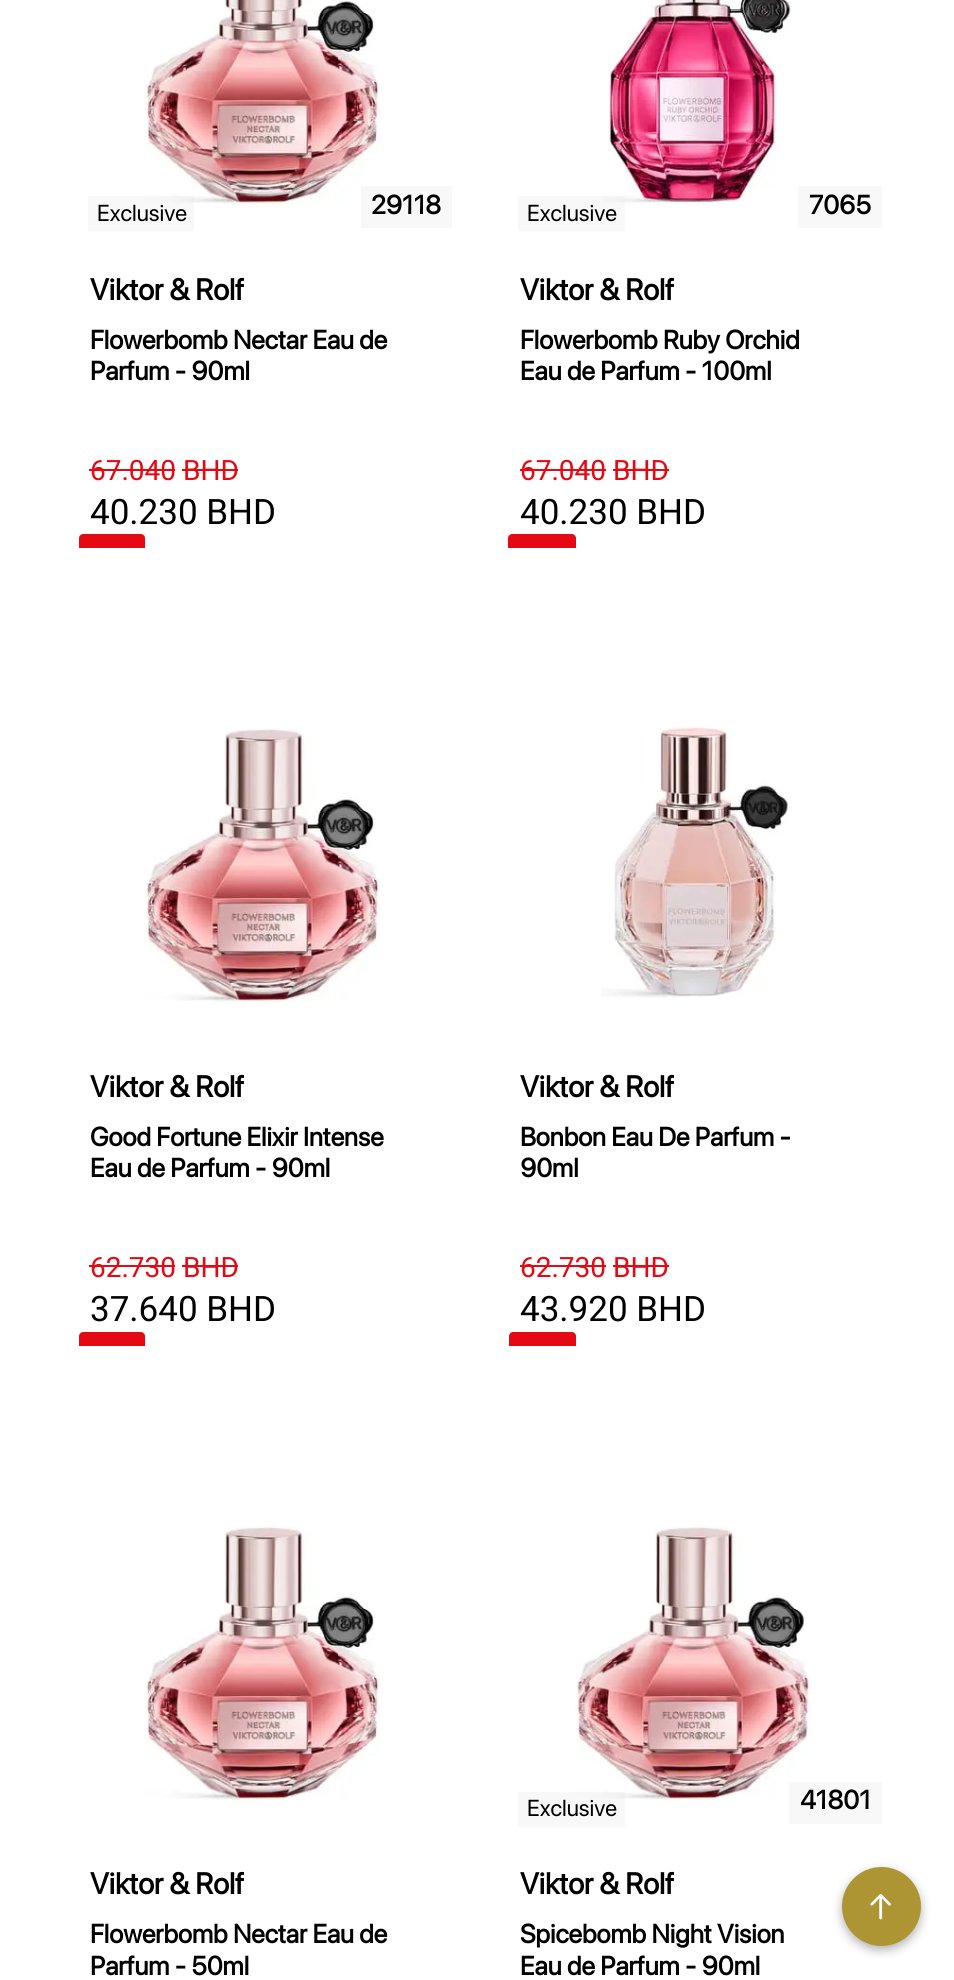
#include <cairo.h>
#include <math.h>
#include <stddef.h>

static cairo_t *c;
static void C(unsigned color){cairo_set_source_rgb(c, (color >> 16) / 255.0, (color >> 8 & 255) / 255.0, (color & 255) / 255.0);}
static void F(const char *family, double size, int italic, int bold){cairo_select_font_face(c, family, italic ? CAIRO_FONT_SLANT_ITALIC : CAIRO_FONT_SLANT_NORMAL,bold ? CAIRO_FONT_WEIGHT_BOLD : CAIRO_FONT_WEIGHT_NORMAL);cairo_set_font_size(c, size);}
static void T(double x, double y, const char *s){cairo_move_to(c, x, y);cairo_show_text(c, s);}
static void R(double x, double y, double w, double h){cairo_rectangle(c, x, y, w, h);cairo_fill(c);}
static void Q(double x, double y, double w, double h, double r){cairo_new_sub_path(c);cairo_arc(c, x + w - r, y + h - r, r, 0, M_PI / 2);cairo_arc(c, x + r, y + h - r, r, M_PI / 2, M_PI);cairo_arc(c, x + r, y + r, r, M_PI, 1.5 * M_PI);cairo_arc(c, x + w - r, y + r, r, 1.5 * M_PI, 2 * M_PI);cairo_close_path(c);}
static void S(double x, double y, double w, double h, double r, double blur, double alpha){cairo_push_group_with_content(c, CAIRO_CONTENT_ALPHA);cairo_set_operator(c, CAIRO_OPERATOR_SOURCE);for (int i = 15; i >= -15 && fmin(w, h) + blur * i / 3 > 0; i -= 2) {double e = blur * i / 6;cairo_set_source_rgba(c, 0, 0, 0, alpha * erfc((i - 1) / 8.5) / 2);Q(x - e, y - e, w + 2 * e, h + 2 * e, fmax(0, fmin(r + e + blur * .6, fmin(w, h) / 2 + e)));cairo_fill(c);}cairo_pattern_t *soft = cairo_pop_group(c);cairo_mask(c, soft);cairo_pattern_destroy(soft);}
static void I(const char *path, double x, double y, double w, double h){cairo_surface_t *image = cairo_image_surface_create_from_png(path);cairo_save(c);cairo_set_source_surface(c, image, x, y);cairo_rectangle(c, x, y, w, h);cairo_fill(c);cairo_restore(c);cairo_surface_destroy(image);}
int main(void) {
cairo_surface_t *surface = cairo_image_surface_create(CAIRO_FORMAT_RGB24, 954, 1980);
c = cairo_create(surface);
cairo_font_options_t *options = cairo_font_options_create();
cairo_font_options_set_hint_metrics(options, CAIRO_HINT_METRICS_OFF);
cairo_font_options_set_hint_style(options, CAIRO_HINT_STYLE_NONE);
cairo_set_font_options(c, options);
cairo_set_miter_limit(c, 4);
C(0xffffff);
cairo_paint(c);
I("1.png",144,0,237,207);
cairo_set_source_rgba(c,0.867,0.867,0.867,0.21);
R(88,196,106,35);
F("SF Pro Display",23,0,0);
C(0x000000);
T(97,221,"Exclusive");
C(0xf8f8f8);
R(361,186,91,42);
F("SF Pro Display",26.25,0,1);
C(0x000000);
T(371,214,"29118");
F("SF Pro Display",29.75,0,1);
T(90,300,"Viktor & Rolf");
F("SF Pro Display",26.25,0,1);
T(90,349,"Flowerbomb Nectar Eau de");
T(90,380,"Parfum - 90ml");
F("Heebo",28,0,0);
C(0xe50914);
T(90,480,"67.040 BHD");
R(89,469,86,2);
R(182,469,56,2);
F("Heebo",35,0,0);
C(0x000000);
T(90,524,"40.230 BHD");
C(0xe50914);
cairo_new_path(c);
cairo_move_to(c,83,534);
cairo_line_to(c,141,534);
cairo_curve_to(c,143,534,145,536,145,538);
cairo_line_to(c,145,548);
cairo_line_to(c,79,548);
cairo_line_to(c,79,538);
cairo_curve_to(c,79,536,81,534,83,534);
cairo_close_path(c);
cairo_fill(c);
I("2.png",603,0,188,203);
cairo_set_source_rgba(c,0.867,0.867,0.867,0.21);
R(518,196,107,35);
F("SF Pro Display",23,0,0);
C(0x000000);
T(527,221,"Exclusive");
C(0xf8f8f8);
R(798,186,84,42);
F("SF Pro Display",26.25,0,1);
C(0x000000);
T(809,214,"7065");
F("SF Pro Display",29.75,0,1);
T(520,300,"Viktor & Rolf");
F("SF Pro Display",26.25,0,1);
T(520,349,"Flowerbomb Ruby Orchid");
T(520,380,"Eau de Parfum - 100ml");
F("Heebo",28,0,0);
C(0xe50914);
T(520,480,"67.040 BHD");
R(520,469,86,2);
R(613,469,56,2);
F("Heebo",35,0,0);
C(0x000000);
T(520,524,"40.230 BHD");
C(0xe50914);
cairo_new_path(c);
cairo_move_to(c,512,534);
cairo_line_to(c,572,534);
cairo_curve_to(c,574,534,576,536,576,538);
cairo_line_to(c,576,548);
cairo_line_to(c,508,548);
cairo_line_to(c,508,538);
cairo_curve_to(c,508,536,510,534,512,534);
cairo_close_path(c);
cairo_fill(c);
I("3.png",144,728,237,277);
F("SF Pro Display",29.75,0,1);
C(0x000000);
T(90,1097,"Viktor & Rolf");
F("SF Pro Display",26.25,0,1);
T(90,1146,"Good Fortune Elixir Intense");
T(90,1177,"Eau de Parfum - 90ml");
F("Heebo",28,0,0);
C(0xe50914);
T(90,1277,"62.730 BHD");
R(89,1265,86,2);
R(182,1265,56,2);
F("Heebo",35,0,0);
C(0x000000);
T(90,1321,"37.640 BHD");
C(0xe50914);
cairo_new_path(c);
cairo_move_to(c,83,1332);
cairo_line_to(c,141,1332);
cairo_curve_to(c,143,1332,145,1334,145,1336);
cairo_line_to(c,145,1346);
cairo_line_to(c,79,1346);
cairo_line_to(c,79,1336);
cairo_curve_to(c,79,1334,81,1332,83,1332);
cairo_close_path(c);
cairo_fill(c);
I("4.png",601,726,187,272);
F("SF Pro Display",29.75,0,1);
C(0x000000);
T(520,1097,"Viktor & Rolf");
F("SF Pro Display",26.25,0,1);
T(520,1146,"Bonbon Eau De Parfum -");
T(520,1177,"90ml");
F("Heebo",28,0,0);
C(0xe50914);
T(520,1277,"62.730 BHD");
R(520,1265,86,2);
R(613,1265,56,2);
F("Heebo",35,0,0);
C(0x000000);
T(520,1321,"43.920 BHD");
C(0xe50914);
cairo_new_path(c);
cairo_move_to(c,513,1332);
cairo_line_to(c,572,1332);
cairo_curve_to(c,574,1332,576,1334,576,1336);
cairo_line_to(c,576,1346);
cairo_line_to(c,509,1346);
cairo_line_to(c,509,1336);
cairo_curve_to(c,509,1334,511,1332,513,1332);
cairo_close_path(c);
cairo_fill(c);
I("3.png",144,1526,237,277);
F("SF Pro Display",29.75,0,1);
C(0x000000);
T(90,1894,"Viktor & Rolf");
F("SF Pro Display",26.25,0,1);
T(90,1943,"Flowerbomb Nectar Eau de");
T(90,1975,"Parfum - 50ml");
I("5.png",575,1526,239,277);
cairo_set_source_rgba(c,0.867,0.867,0.867,0.21);
R(518,1792,107,35);
F("SF Pro Display",23,0,0);
C(0x000000);
T(527,1816,"Exclusive");
C(0xf8f8f8);
R(789,1782,93,42);
F("SF Pro Display",26.25,0,1);
C(0x000000);
T(800,1809,"41801");
F("SF Pro Display",29.75,0,1);
T(520,1894,"Viktor & Rolf");
F("SF Pro Display",26.25,0,1);
T(520,1943,"Spicebomb Night Vision");
T(520,1975,"Eau de Parfum - 90ml");
C(0x000000);
S(842,1871,79,79,39.5,5,.3);
C(0xac9532);
cairo_arc(c,881.5,1906.5,39.5,0,2 * M_PI);
cairo_fill(c);
F("SF Pro Display",35,0,0);
C(0xffffff);
T(867,1919,"↑");
cairo_surface_write_to_png(surface, "o.png");
cairo_font_options_destroy(options);
cairo_destroy(c);
cairo_surface_destroy(surface);
return 0;
}
